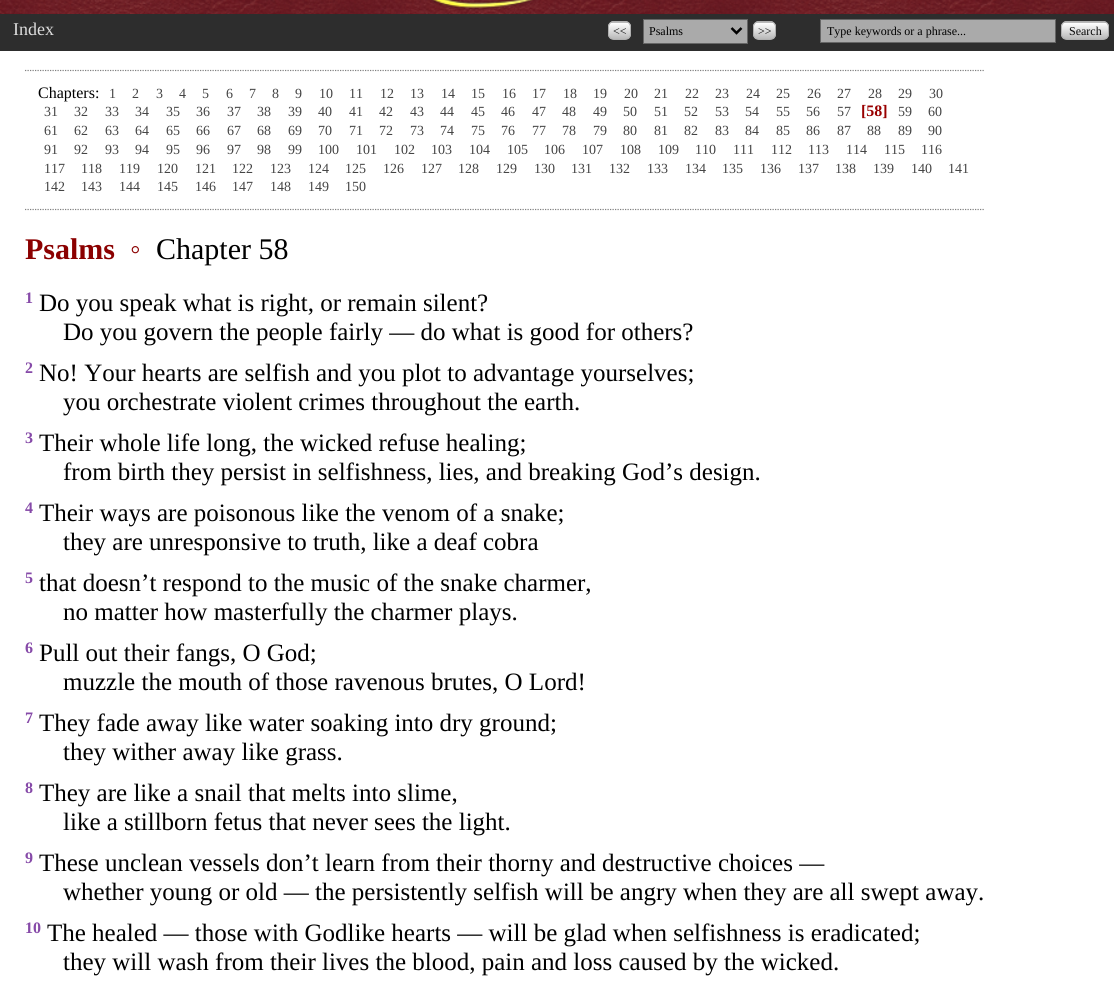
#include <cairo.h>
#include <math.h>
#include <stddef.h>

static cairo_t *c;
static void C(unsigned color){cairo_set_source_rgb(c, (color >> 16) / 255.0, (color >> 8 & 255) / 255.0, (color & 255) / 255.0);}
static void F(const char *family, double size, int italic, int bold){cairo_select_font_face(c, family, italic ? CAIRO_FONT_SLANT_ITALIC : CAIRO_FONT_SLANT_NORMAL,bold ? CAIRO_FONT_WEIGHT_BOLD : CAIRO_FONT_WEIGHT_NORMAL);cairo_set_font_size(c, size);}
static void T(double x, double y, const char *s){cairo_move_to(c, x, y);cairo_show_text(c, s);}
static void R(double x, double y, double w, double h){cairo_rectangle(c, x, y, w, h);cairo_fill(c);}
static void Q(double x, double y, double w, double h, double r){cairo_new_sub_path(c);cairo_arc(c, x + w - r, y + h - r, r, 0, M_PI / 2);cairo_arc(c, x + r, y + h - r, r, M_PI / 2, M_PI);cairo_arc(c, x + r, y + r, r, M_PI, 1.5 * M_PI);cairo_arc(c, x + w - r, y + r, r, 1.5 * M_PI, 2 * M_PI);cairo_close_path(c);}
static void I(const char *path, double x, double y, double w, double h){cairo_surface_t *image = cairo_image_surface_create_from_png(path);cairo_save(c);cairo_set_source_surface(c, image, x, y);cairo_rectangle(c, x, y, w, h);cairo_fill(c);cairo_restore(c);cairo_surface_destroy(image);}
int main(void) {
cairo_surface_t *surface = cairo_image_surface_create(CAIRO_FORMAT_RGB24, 1114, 985);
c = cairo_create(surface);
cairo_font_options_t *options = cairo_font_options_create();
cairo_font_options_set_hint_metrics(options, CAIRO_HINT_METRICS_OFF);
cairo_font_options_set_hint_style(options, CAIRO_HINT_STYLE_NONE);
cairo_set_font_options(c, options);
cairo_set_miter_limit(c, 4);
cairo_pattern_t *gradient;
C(0xffffff);
cairo_paint(c);
I("1.png",0,0,1114,14);
C(0x2d2d2d);
R(0,14,1114,37);
F("Liberation Serif",18,0,0);
C(0xdddddd);
T(13,35,"Index");
cairo_save(c);
Q(608,21,23,19,6);
cairo_clip(c);
gradient = cairo_pattern_create_linear(619,6.2,619,23);
cairo_pattern_add_color_stop_rgba(gradient,0,1,1,1,1);
cairo_pattern_add_color_stop_rgba(gradient,1,0.722,0.722,0.722,1);
cairo_set_source(c,gradient);
cairo_pattern_destroy(gradient);
R(608,21,23,2);
gradient = cairo_pattern_create_linear(619,23,619,39);
cairo_pattern_add_color_stop_rgba(gradient,0,1,1,1,1);
cairo_pattern_add_color_stop_rgba(gradient,1,0.722,0.722,0.722,1);
cairo_set_source(c,gradient);
cairo_pattern_destroy(gradient);
R(608,23,23,16);
cairo_restore(c);
Q(608.5,21.5,22,18,5.5);
C(0xb0b0b0);
cairo_set_line_width(c,1);
cairo_stroke(c);
F("Liberation Serif",12,0,0);
C(0x080808);
T(613,35,"<<");
C(0xaaaaaa);
cairo_rectangle(c,643.5,19.5,104,24);
cairo_fill_preserve(c);
C(0x666666);
cairo_stroke(c);
cairo_new_path(c);
cairo_move_to(c,731.5,28);
cairo_line_to(c,736.5,33);
cairo_line_to(c,741.5,28);
C(0x000000);
cairo_set_line_width(c,2.5);
cairo_stroke(c);
T(649,35,"Psalms");
cairo_save(c);
Q(753,21,23,19,6);
cairo_clip(c);
gradient = cairo_pattern_create_linear(764,6.2,764,23);
cairo_pattern_add_color_stop_rgba(gradient,0,1,1,1,1);
cairo_pattern_add_color_stop_rgba(gradient,1,0.722,0.722,0.722,1);
cairo_set_source(c,gradient);
cairo_pattern_destroy(gradient);
R(753,21,23,2);
gradient = cairo_pattern_create_linear(764,23,764,39);
cairo_pattern_add_color_stop_rgba(gradient,0,1,1,1,1);
cairo_pattern_add_color_stop_rgba(gradient,1,0.722,0.722,0.722,1);
cairo_set_source(c,gradient);
cairo_pattern_destroy(gradient);
R(753,23,23,16);
cairo_restore(c);
Q(753.5,21.5,22,18,5.5);
C(0xb0b0b0);
cairo_set_line_width(c,1);
cairo_stroke(c);
C(0x080808);
T(758,35,">>");
C(0xaaaaaa);
cairo_rectangle(c,820.5,19.5,235,23);
cairo_fill_preserve(c);
C(0x666666);
cairo_stroke(c);
C(0x000000);
T(827,35,"Type keywords or a phrase...");
cairo_save(c);
Q(1061,21,48,19,6);
cairo_clip(c);
gradient = cairo_pattern_create_linear(1085,6.2,1085,23);
cairo_pattern_add_color_stop_rgba(gradient,0,1,1,1,1);
cairo_pattern_add_color_stop_rgba(gradient,1,0.722,0.722,0.722,1);
cairo_set_source(c,gradient);
cairo_pattern_destroy(gradient);
R(1061,21,48,2);
gradient = cairo_pattern_create_linear(1085,23,1085,39);
cairo_pattern_add_color_stop_rgba(gradient,0,1,1,1,1);
cairo_pattern_add_color_stop_rgba(gradient,1,0.722,0.722,0.722,1);
cairo_set_source(c,gradient);
cairo_pattern_destroy(gradient);
R(1061,23,48,16);
cairo_restore(c);
Q(1061.5,21.5,47,18,5.5);
C(0xb0b0b0);
cairo_stroke(c);
C(0x080808);
T(1069,35,"Search");
cairo_new_path(c);
cairo_move_to(c,25,70.5);
cairo_line_to(c,984,70.5);
C(0x808080);
cairo_set_line_width(c,1.2);
cairo_set_dash(c,(double[]){1.25,1.25},2,0);
cairo_stroke(c);
cairo_new_path(c);
cairo_move_to(c,25,209.5);
cairo_line_to(c,984,209.5);
cairo_stroke(c);
F("Liberation Serif",16,0,0);
C(0x000000);
T(38,98,"Chapters:");
F("Liberation Serif",14,0,0);
C(0x444444);
T(109,98,"1");
T(132,98,"2");
T(156,98,"3");
T(179,98,"4");
T(202,98,"5");
T(226,98,"6");
T(249,98,"7");
T(272,98,"8");
T(295,98,"9");
T(319,98,"10");
T(349,98,"11");
T(380,98,"12");
T(410,98,"13");
T(441,98,"14");
T(471,98,"15");
T(502,98,"16");
T(532,98,"17");
T(563,98,"18");
T(593,98,"19");
T(624,98,"20");
T(654,98,"21");
T(685,98,"22");
T(715,98,"23");
T(746,98,"24");
T(776,98,"25");
T(807,98,"26");
T(837,98,"27");
T(868,98,"28");
T(898,98,"29");
T(929,98,"30");
T(44,116,"31");
T(74,116,"32");
T(105,116,"33");
T(135,116,"34");
T(166,116,"35");
T(196,116,"36");
T(227,116,"37");
T(257,116,"38");
T(288,116,"39");
T(318,116,"40");
T(349,116,"41");
T(379,116,"42");
T(410,116,"43");
T(440,116,"44");
T(471,116,"45");
T(501,116,"46");
T(532,116,"47");
T(562,116,"48");
T(593,116,"49");
T(623,116,"50");
T(654,116,"51");
T(684,116,"52");
T(715,116,"53");
T(745,116,"54");
T(776,116,"55");
T(806,116,"56");
T(837,116,"57");
F("Liberation Serif",16,0,1);
C(0x990000);
T(861,116,"[58]");
F("Liberation Serif",14,0,0);
C(0x444444);
T(898,116,"59");
T(928,116,"60");
T(44,135,"61");
T(74,135,"62");
T(105,135,"63");
T(135,135,"64");
T(166,135,"65");
T(196,135,"66");
T(227,135,"67");
T(257,135,"68");
T(288,135,"69");
T(318,135,"70");
T(349,135,"71");
T(379,135,"72");
T(410,135,"73");
T(440,135,"74");
T(471,135,"75");
T(501,135,"76");
T(532,135,"77");
T(562,135,"78");
T(593,135,"79");
T(623,135,"80");
T(654,135,"81");
T(684,135,"82");
T(715,135,"83");
T(745,135,"84");
T(776,135,"85");
T(806,135,"86");
T(837,135,"87");
T(867,135,"88");
T(898,135,"89");
T(928,135,"90");
T(44,154,"91");
T(74,154,"92");
T(105,154,"93");
T(135,154,"94");
T(166,154,"95");
T(196,154,"96");
T(227,154,"97");
T(257,154,"98");
T(288,154,"99");
T(318,154,"100");
T(356,154,"101");
T(394,154,"102");
T(431,154,"103");
T(469,154,"104");
T(507,154,"105");
T(544,154,"106");
T(582,154,"107");
T(620,154,"108");
T(658,154,"109");
T(695,154,"110");
T(733,154,"111");
T(771,154,"112");
T(808,154,"113");
T(846,154,"114");
T(884,154,"115");
T(921,154,"116");
T(44,173,"117");
T(81,173,"118");
T(119,173,"119");
T(157,173,"120");
T(195,173,"121");
T(232,173,"122");
T(270,173,"123");
T(308,173,"124");
T(345,173,"125");
T(383,173,"126");
T(421,173,"127");
T(458,173,"128");
T(496,173,"129");
T(534,173,"130");
T(571,173,"131");
T(609,173,"132");
T(647,173,"133");
T(685,173,"134");
T(722,173,"135");
T(760,173,"136");
T(798,173,"137");
T(835,173,"138");
T(873,173,"139");
T(911,173,"140");
T(948,173,"141");
T(44,191,"142");
T(81,191,"143");
T(119,191,"144");
T(157,191,"145");
T(195,191,"146");
T(232,191,"147");
T(270,191,"148");
T(308,191,"149");
T(345,191,"150");
F("Liberation Serif",30,0,1);
C(0x8b0000);
T(25,259,"Psalms");
F("Liberation Serif",30,0,0);
T(130,259,"◦");
C(0x000000);
T(156,259,"Chapter 58");
F("Liberation Serif",16,0,1);
C(0x864aa8);
T(25,303,"1");
F("Liberation Serif",25,0,0);
C(0x000000);
T(39,311,"Do you speak what is right, or remain silent?");
T(63,340,"Do you govern the people fairly — do what is good for others?");
F("Liberation Serif",16,0,1);
C(0x864aa8);
T(25,373,"2");
F("Liberation Serif",25,0,0);
C(0x000000);
T(39,381,"No! Your hearts are selfish and you plot to advantage yourselves;");
T(63,410,"you orchestrate violent crimes throughout the earth.");
F("Liberation Serif",16,0,1);
C(0x864aa8);
T(25,443,"3");
F("Liberation Serif",25,0,0);
C(0x000000);
T(39,451,"Their whole life long, the wicked refuse healing;");
T(63,480,"from birth they persist in selfishness, lies, and breaking God’s design.");
F("Liberation Serif",16,0,1);
C(0x864aa8);
T(25,513,"4");
F("Liberation Serif",25,0,0);
C(0x000000);
T(39,521,"Their ways are poisonous like the venom of a snake;");
T(63,550,"they are unresponsive to truth, like a deaf cobra");
F("Liberation Serif",16,0,1);
C(0x864aa8);
T(25,583,"5");
F("Liberation Serif",25,0,0);
C(0x000000);
T(39,591,"that doesn’t respond to the music of the snake charmer,");
T(63,620,"no matter how masterfully the charmer plays.");
F("Liberation Serif",16,0,1);
C(0x864aa8);
T(25,653,"6");
F("Liberation Serif",25,0,0);
C(0x000000);
T(39,661,"Pull out their fangs, O God;");
T(63,690,"muzzle the mouth of those ravenous brutes, O Lord!");
F("Liberation Serif",16,0,1);
C(0x864aa8);
T(25,723,"7");
F("Liberation Serif",25,0,0);
C(0x000000);
T(39,731,"They fade away like water soaking into dry ground;");
T(63,760,"they wither away like grass.");
F("Liberation Serif",16,0,1);
C(0x864aa8);
T(25,793,"8");
F("Liberation Serif",25,0,0);
C(0x000000);
T(39,801,"They are like a snail that melts into slime,");
T(63,830,"like a stillborn fetus that never sees the light.");
F("Liberation Serif",16,0,1);
C(0x864aa8);
T(25,863,"9");
F("Liberation Serif",25,0,0);
C(0x000000);
T(39,871,"These unclean vessels don’t learn from their thorny and destructive choices —");
T(63,900,"whether young or old — the persistently selfish will be angry when they are all swept away.");
F("Liberation Serif",16,0,1);
C(0x864aa8);
T(25,933,"10");
F("Liberation Serif",25,0,0);
C(0x000000);
T(47,941,"The healed — those with Godlike hearts — will be glad when selfishness is eradicated;");
T(63,970,"they will wash from their lives the blood, pain and loss caused by the wicked.");
cairo_surface_write_to_png(surface, "o.png");
cairo_font_options_destroy(options);
cairo_destroy(c);
cairo_surface_destroy(surface);
return 0;
}
